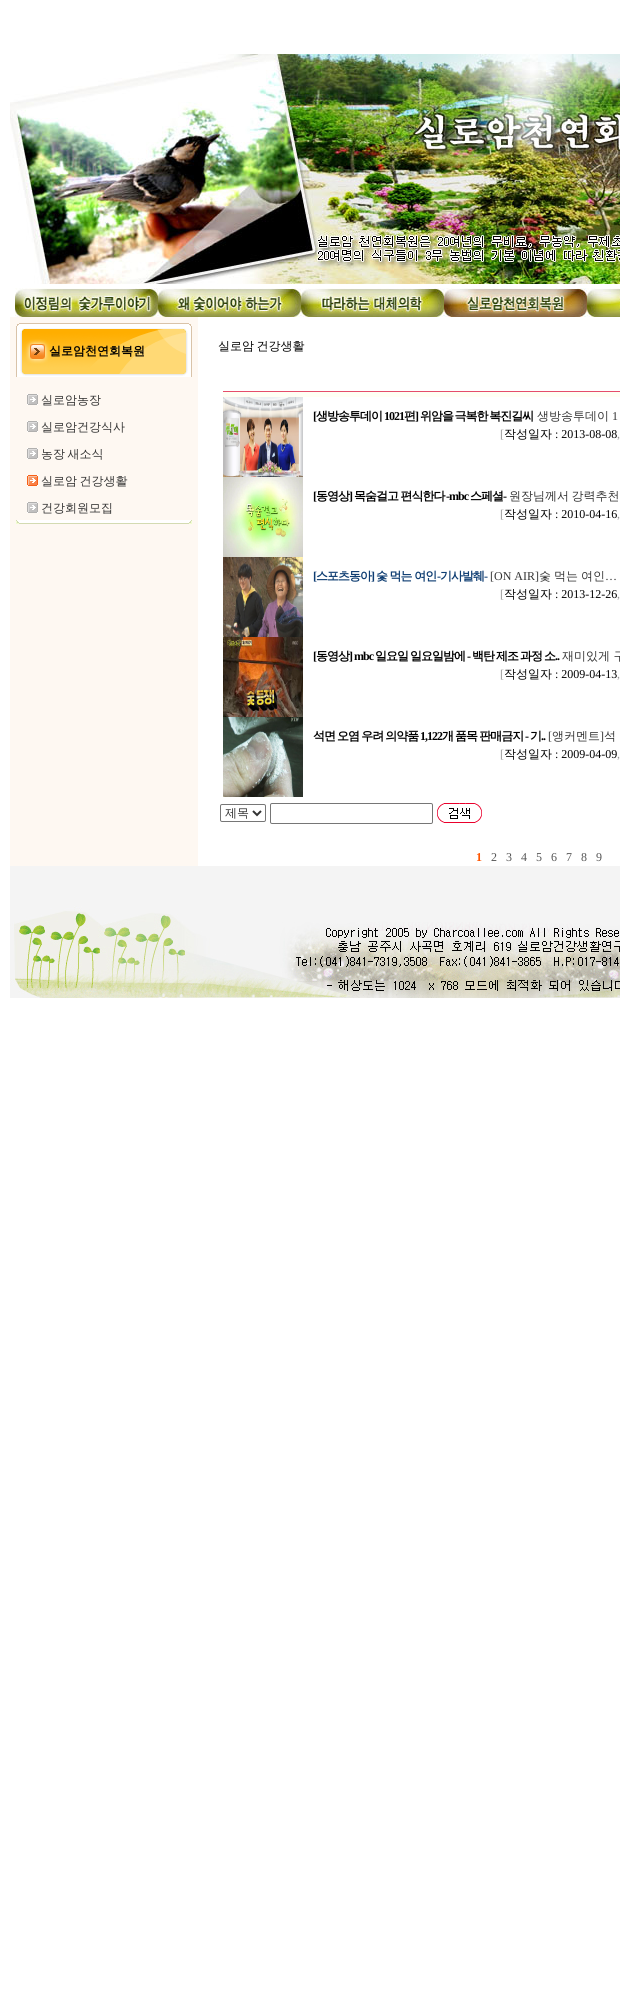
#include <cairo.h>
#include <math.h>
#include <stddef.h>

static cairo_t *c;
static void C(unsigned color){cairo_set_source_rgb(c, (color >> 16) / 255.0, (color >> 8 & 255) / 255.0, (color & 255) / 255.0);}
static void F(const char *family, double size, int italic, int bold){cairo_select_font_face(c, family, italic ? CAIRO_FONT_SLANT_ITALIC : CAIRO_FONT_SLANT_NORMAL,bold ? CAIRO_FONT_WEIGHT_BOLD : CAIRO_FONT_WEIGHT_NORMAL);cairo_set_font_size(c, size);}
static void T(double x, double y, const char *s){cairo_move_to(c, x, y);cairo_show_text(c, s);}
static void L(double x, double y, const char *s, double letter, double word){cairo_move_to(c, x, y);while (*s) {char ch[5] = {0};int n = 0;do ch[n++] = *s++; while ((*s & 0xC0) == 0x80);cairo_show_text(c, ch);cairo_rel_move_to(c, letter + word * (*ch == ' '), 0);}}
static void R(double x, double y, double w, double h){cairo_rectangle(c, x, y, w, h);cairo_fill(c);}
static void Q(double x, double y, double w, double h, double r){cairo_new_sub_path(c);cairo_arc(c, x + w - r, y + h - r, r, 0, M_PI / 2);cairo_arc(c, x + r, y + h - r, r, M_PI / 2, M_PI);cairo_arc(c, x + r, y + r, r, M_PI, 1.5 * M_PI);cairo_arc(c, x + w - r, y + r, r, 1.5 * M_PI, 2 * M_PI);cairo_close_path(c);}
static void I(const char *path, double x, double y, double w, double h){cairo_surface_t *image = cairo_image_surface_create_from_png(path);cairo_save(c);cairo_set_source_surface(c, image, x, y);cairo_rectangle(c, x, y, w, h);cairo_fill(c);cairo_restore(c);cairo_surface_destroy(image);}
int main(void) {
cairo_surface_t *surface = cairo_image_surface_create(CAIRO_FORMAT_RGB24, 620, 2000);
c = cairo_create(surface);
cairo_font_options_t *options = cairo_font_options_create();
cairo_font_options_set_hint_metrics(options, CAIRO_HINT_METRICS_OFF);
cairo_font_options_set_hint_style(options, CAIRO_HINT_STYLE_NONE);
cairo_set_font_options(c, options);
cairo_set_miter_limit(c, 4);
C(0xffffff);
cairo_paint(c);
I("1.png",10,54,610,230);
I("2.png",15,288,143,29);
I("3.png",158,288,143,29);
I("4.png",301,288,143,29);
I("5.png",444,288,143,29);
I("6.png",587,288,33,29);
C(0xfef8f2);
R(10,317,188,549);
I("7.png",16,323,176,54);
F("WenQuanYi Zen Hei",12,0,1);
C(0x000000);
T(49,355,"실로암천연회복원");
I("8.png",27,394,11,11);
F("WenQuanYi Zen Hei Medium",12,0,0);
C(0x333333);
T(41,404,"실로암농장");
I("8.png",27,421,11,11);
T(41,431,"실로암건강식사");
I("8.png",27,448,11,11);
L(41,458,"농장 새소식",0,-1);
I("9.png",27,475,11,11);
L(41,485,"실로암 건강생활",0,-1);
I("8.png",27,502,11,11);
T(41,512,"건강회원모집");
I("10.png",16,520,176,4);
C(0x000000);
L(218,350,"실로암 건강생활",0,-1);
C(0xe54d6a);
R(223,391,397,1);
C(0xfffff4);
R(223,392,397,5);
I("11.png",223,397,80,80);
F("Liberation Serif",12,0,1);
C(0x000000);
L(313,420,"[",-1,0);
F("WenQuanYi Zen Hei",12,0,1);
L(316,420,"생방송투데이",-1,0);
F("Liberation Serif",12,0,1);
L(384,420,"1021",-1,0);
F("WenQuanYi Zen Hei",12,0,1);
L(404,420,"편",-1,0);
F("Liberation Serif",12,0,1);
L(415,420,"]",-1,0);
F("WenQuanYi Zen Hei",12,0,1);
L(420,420,"위암을 극복한 복진길씨",-1,-1);
F("WenQuanYi Zen Hei Medium",12,0,0);
C(0x333333);
T(537,420,"생방송투데이");
F("Liberation Serif",12,0,0);
T(612,420,"1");
C(0x999999);
T(500,438,"[");
F("WenQuanYi Zen Hei Medium",12,0,0);
C(0x000000);
T(504,438,"작성일자");
F("Liberation Serif",12,0,0);
T(555,438,": 2013-08-08");
C(0x999999);
T(617,438,",");
I("12.png",223,477,80,80);
F("Liberation Serif",12,0,1);
C(0x000000);
L(313,500,"[",-1,0);
F("WenQuanYi Zen Hei",12,0,1);
L(316,500,"동영상",-1,0);
F("Liberation Serif",12,0,1);
L(349,500,"]",-1,0);
F("WenQuanYi Zen Hei",12,0,1);
L(354,500,"목숨걸고 편식한다",-1,0);
F("Liberation Serif",12,0,1);
L(446,500,"-mbc",-1,0);
F("WenQuanYi Zen Hei",12,0,1);
L(470,500,"스페셜",-1,0);
F("Liberation Serif",12,0,1);
L(503,500,"-",-1,0);
F("WenQuanYi Zen Hei Medium",12,0,0);
C(0x333333);
L(509,500,"원장님께서 강력추천",0,-1);
F("Liberation Serif",12,0,0);
C(0x999999);
T(500,518,"[");
F("WenQuanYi Zen Hei Medium",12,0,0);
C(0x000000);
T(504,518,"작성일자");
F("Liberation Serif",12,0,0);
T(555,518,": 2010-04-16");
C(0x999999);
T(617,518,",");
I("13.png",223,557,80,80);
F("Liberation Serif",12,0,1);
C(0x0e3d72);
L(313,580,"[",-1,0);
F("WenQuanYi Zen Hei",12,0,1);
L(316,580,"스포츠동아",-1,0);
F("Liberation Serif",12,0,1);
L(371,580,"]",-1,0);
F("WenQuanYi Zen Hei",12,0,1);
L(376,580,"숯 먹는 여인",-1,0);
F("Liberation Serif",12,0,1);
L(437,580,"-",-1,0);
F("WenQuanYi Zen Hei",12,0,1);
L(440,580,"기사발췌",-1,0);
F("Liberation Serif",12,0,1);
L(484,580,"-",-1,0);
F("Liberation Serif",12,0,0);
C(0x333333);
T(490,580,"[ON AIR]");
F("WenQuanYi Zen Hei Medium",12,0,0);
T(539,580,"숯");
T(554,580,"먹는");
T(581,580,"여인");
F("Liberation Serif",12,0,0);
T(605,580,"…");
C(0x999999);
T(500,598,"[");
F("WenQuanYi Zen Hei Medium",12,0,0);
C(0x000000);
T(504,598,"작성일자");
F("Liberation Serif",12,0,0);
T(555,598,": 2013-12-26");
C(0x999999);
T(617,598,",");
I("14.png",223,637,80,80);
F("Liberation Serif",12,0,1);
C(0x000000);
L(313,660,"[",-1,0);
F("WenQuanYi Zen Hei",12,0,1);
L(316,660,"동영상",-1,0);
F("Liberation Serif",12,0,1);
L(349,660,"] mbc",-1,0);
F("WenQuanYi Zen Hei",12,0,1);
L(375,660,"일요일",-1,0);
L(410,660,"일요일밤에",-1,0);
F("Liberation Serif",12,0,1);
L(467,660,"-",-1,0);
F("WenQuanYi Zen Hei",12,0,1);
L(472,660,"백탄",-1,0);
L(496,660,"제조",-1,0);
L(520,660,"과정",-1,0);
L(544,660,"소",-1,0);
F("WenQuanYi Zen Hei Medium",12,0,0);
C(0x333333);
T(562,660,"재미있게 구");
F("Liberation Serif",12,0,1);
C(0x000000);
L(555,660,"..",-1,0);
F("Liberation Serif",12,0,0);
C(0x999999);
T(500,678,"[");
F("WenQuanYi Zen Hei Medium",12,0,0);
C(0x000000);
T(504,678,"작성일자");
F("Liberation Serif",12,0,0);
T(555,678,": 2009-04-13");
C(0x999999);
T(617,678,",");
I("15.png",223,717,80,80);
F("WenQuanYi Zen Hei",12,0,1);
C(0x000000);
L(313,740,"석면 오염 우려 의약품",-1,-.5);
F("Liberation Serif",12,0,1);
L(420,740,"1,122",-1,0);
F("WenQuanYi Zen Hei",12,0,1);
L(442,740,"개 품목 판매금지",-1,-.5);
F("Liberation Serif",12,0,1);
L(525,740,"-",-1,0);
F("WenQuanYi Zen Hei",12,0,1);
L(530,740,"기",-1,0);
F("Liberation Serif",12,0,0);
C(0x333333);
T(548,740,"[");
F("WenQuanYi Zen Hei Medium",12,0,0);
T(552,740,"앵커멘트");
F("Liberation Serif",12,0,0);
T(600,740,"]");
F("WenQuanYi Zen Hei Medium",12,0,0);
L(604,740,"석",0,-1);
F("Liberation Serif",12,0,1);
C(0x000000);
L(541,740,"..",-1,0);
F("Liberation Serif",12,0,0);
C(0x999999);
T(500,758,"[");
F("WenQuanYi Zen Hei Medium",12,0,0);
C(0x000000);
T(504,758,"작성일자");
F("Liberation Serif",12,0,0);
T(555,758,": 2009-04-09");
C(0x999999);
T(617,758,",");
Q(220.5,804.5,45,17,1.5);
C(0x767676);
cairo_set_line_width(c,1);
cairo_stroke(c);
cairo_new_path(c);
cairo_move_to(c,253,811);
cairo_line_to(c,257,815);
cairo_line_to(c,261,811);
C(0x333333);
cairo_set_line_width(c,2);
cairo_stroke(c);
F("WenQuanYi Zen Hei Medium",12,0,0);
T(225,817,"제목");
Q(270.5,803.5,162,20,1.5);
C(0x767676);
cairo_set_line_width(c,1);
cairo_stroke(c);
I("16.png",437,803,45,20);
F("Liberation Serif",12,0,1);
C(0xff5500);
T(476,861,"1");
F("Liberation Serif",12,0,0);
C(0x555555);
T(491,861,"2");
T(506,861,"3");
T(521,861,"4");
T(536,861,"5");
T(551,861,"6");
T(566,861,"7");
T(581,861,"8");
T(596,861,"9");
I("17.png",10,866,610,132);
cairo_surface_write_to_png(surface, "o.png");
cairo_font_options_destroy(options);
cairo_destroy(c);
cairo_surface_destroy(surface);
return 0;
}
